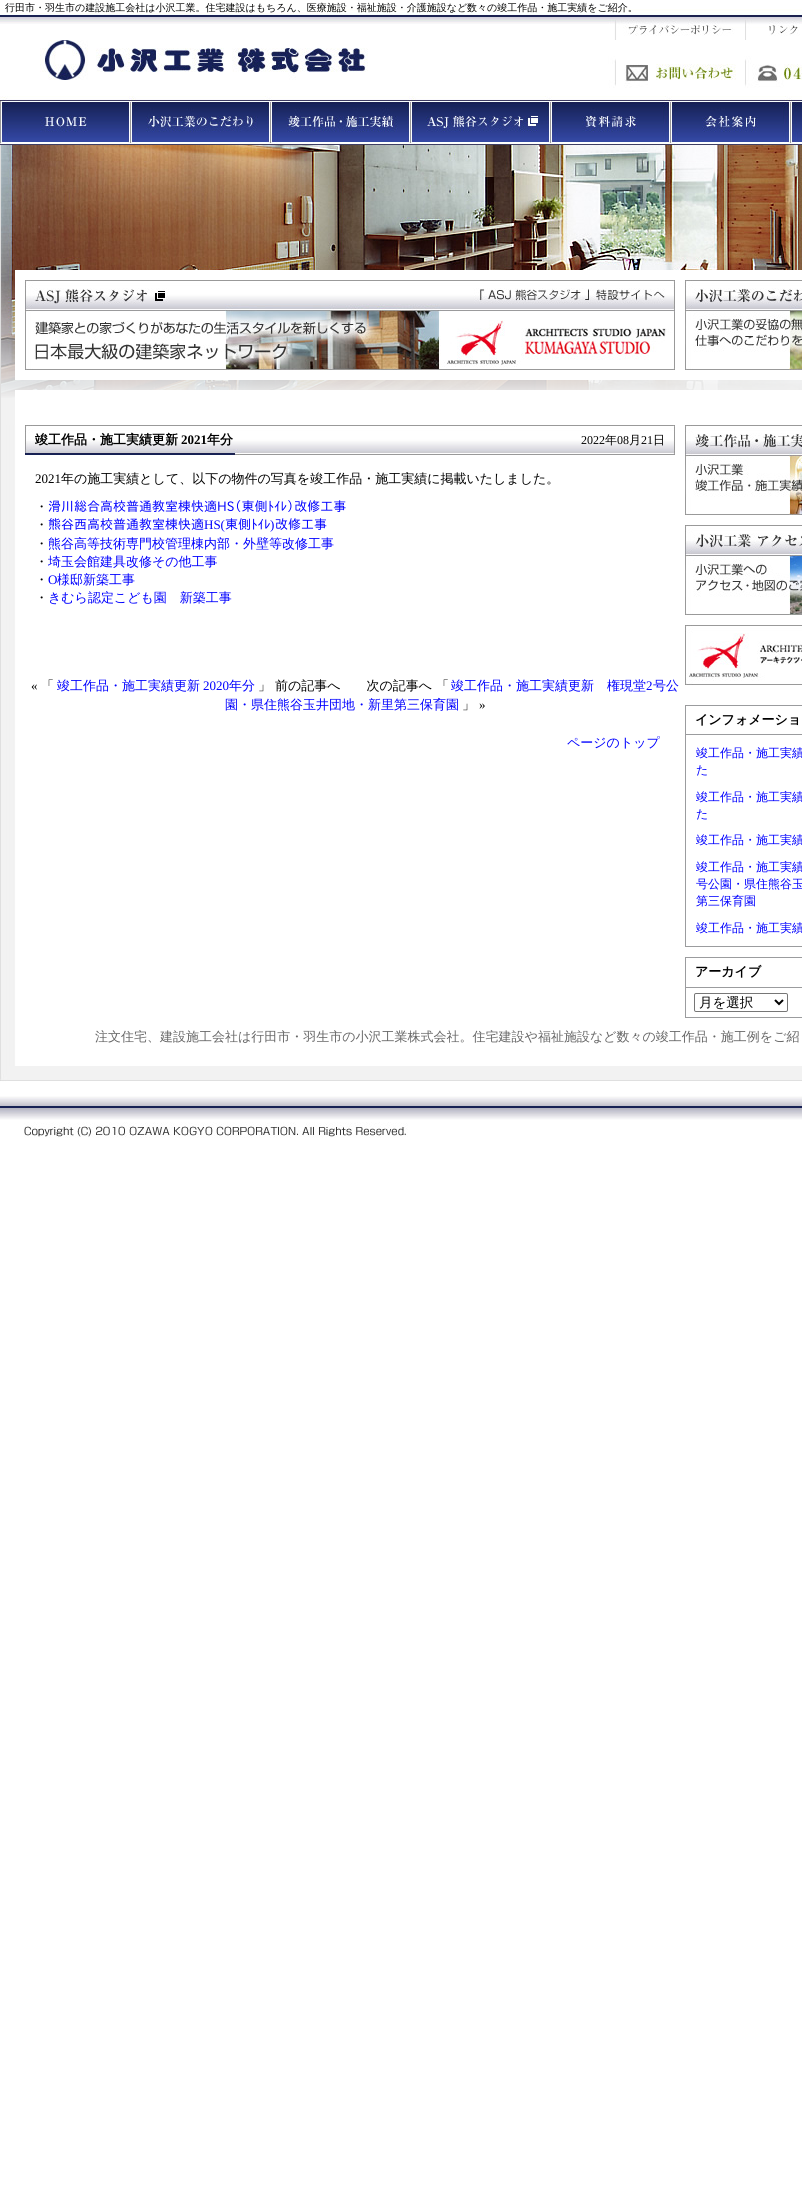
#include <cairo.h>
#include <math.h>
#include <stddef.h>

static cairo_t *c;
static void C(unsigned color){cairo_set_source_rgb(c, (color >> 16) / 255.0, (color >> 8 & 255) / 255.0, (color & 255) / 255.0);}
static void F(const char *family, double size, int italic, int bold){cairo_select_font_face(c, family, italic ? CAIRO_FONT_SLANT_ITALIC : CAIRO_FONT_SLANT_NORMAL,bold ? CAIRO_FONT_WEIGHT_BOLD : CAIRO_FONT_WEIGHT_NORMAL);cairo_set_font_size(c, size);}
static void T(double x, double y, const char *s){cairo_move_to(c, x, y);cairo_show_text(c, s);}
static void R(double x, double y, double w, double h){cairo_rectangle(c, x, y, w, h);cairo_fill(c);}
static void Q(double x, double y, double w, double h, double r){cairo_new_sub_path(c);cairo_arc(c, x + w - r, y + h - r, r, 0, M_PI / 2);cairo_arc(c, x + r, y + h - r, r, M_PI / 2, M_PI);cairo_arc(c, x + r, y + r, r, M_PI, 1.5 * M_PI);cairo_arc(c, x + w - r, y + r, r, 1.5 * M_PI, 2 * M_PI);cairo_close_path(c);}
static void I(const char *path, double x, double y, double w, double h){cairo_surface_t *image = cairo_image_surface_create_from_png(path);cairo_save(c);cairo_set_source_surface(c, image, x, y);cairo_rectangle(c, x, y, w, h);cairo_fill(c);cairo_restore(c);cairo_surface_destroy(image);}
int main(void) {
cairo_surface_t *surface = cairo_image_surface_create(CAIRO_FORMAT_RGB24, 802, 2188);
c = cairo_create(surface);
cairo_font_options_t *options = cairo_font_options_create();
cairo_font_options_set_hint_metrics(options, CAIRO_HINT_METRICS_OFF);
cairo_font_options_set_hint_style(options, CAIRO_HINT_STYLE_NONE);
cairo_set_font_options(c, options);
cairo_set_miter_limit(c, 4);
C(0xffffff);
cairo_paint(c);
I("1.png",0,9,802,136);
F("WenQuanYi Zen Hei Medium",10,0,0);
C(0x000000);
T(5,11,"行田市・羽生市の建設施工会社は小沢工業。住宅建設はもちろん、医療施設・福祉施設・介護施設など数々の竣工作品・施工実績をご紹介。");
I("2.png",616,20,129,20);
I("3.png",745,20,55,20);
I("4.png",0,100,130,44);
I("5.png",130,100,140,44);
I("6.png",270,100,140,44);
I("7.png",410,100,140,44);
I("8.png",550,100,120,44);
I("9.png",670,100,120,44);
I("10.png",790,100,12,44);
I("11.png",0,425,802,641);
I("13.png",1,145,801,253);
I("12.png",0,145,802,280);
C(0xffffff);
R(15,270,787,110);
I("14.png",25,280,650,90);
I("15.png",685,280,117,90);
R(15,390,787,35);
I("16.png",25,425,650,30);
F("WenQuanYi Zen Hei",13,0,1);
C(0x000000);
T(35,444,"竣工作品・施工実績更新");
F("Liberation Serif",13,0,1);
T(181,444,"2021");
F("WenQuanYi Zen Hei",13,0,1);
T(207,444,"年分");
F("Liberation Serif",12,0,0);
T(581,444,"2022");
F("WenQuanYi Zen Hei Medium",12,0,0);
T(605,444,"年");
F("Liberation Serif",12,0,0);
T(617,444,"08");
F("WenQuanYi Zen Hei Medium",12,0,0);
T(629,444,"月");
F("Liberation Serif",12,0,0);
T(641,444,"21");
F("WenQuanYi Zen Hei Medium",12,0,0);
T(653,444,"日");
F("Liberation Serif",13,0,0);
T(35,483,"2021");
F("WenQuanYi Zen Hei Medium",13,0,0);
T(61,483,"年の施工実績として、以下の物件の写真を竣工作品・施工実績に掲載いたしました。");
T(35,511,"・");
F("IPAPGothic",13,0,0);
C(0x0000ff);
T(48,511,"滑川総合高校普通教室棟快適HS（東側ﾄｲﾚ）改修工事");
F("WenQuanYi Zen Hei Medium",13,0,0);
C(0x000000);
T(35,529,"・");
F("IPAPGothic",13,0,0);
C(0x0000ff);
T(48,529,"熊谷西高校普通教室棟快適");
F("Liberation Serif",13,0,0);
T(204,529,"HS(");
F("IPAPGothic",13,0,0);
T(225,529,"東側ﾄｲﾚ");
F("Liberation Serif",13,0,0);
T(270,529,")");
F("IPAPGothic",13,0,0);
T(275,529,"改修工事");
F("WenQuanYi Zen Hei Medium",13,0,0);
C(0x000000);
T(35,548,"・");
C(0x0000ff);
T(48,548,"熊谷高等技術専門校管理棟内部・外壁等改修工事");
C(0x000000);
T(35,566,"・");
C(0x0000ff);
T(48,566,"埼玉会館建具改修その他工事");
C(0x000000);
T(35,584,"・");
F("Liberation Serif",13,0,0);
C(0x0000ff);
T(48,584,"O");
F("WenQuanYi Zen Hei Medium",13,0,0);
T(57,584,"様邸新築工事");
C(0x000000);
T(35,602,"・");
C(0x0000ff);
T(48,602,"きむら認定こども園　新築工事");
F("Liberation Serif",13,0,0);
C(0x000000);
T(31,690,"«");
F("WenQuanYi Zen Hei Medium",13,0,0);
T(41,690,"「");
C(0x0000ff);
T(57,690,"竣工作品・施工実績更新");
F("Liberation Serif",13,0,0);
T(203,690,"2020");
F("WenQuanYi Zen Hei Medium",13,0,0);
T(229,690,"年分");
C(0x000000);
T(258,690,"」 前の記事へ　　次の記事へ 「");
C(0x0000ff);
T(451,690,"竣工作品・施工実績更新　権現堂");
F("Liberation Serif",13,0,0);
T(646,690,"2");
F("WenQuanYi Zen Hei Medium",13,0,0);
T(653,690,"号公");
T(225,709,"園・県住熊谷玉井団地・新里第三保育園");
C(0x000000);
T(462,709,"」");
F("Liberation Serif",13,0,0);
T(479,709,"»");
F("WenQuanYi Zen Hei Medium",13,0,0);
C(0x0000ff);
T(567,747,"ページのトップ");
I("17.png",685,425,117,90);
I("18.png",685,525,117,90);
I("19.png",685,625,117,60);
cairo_rectangle(c,685.5,705.5,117,241);
C(0x9b9c9e);
cairo_set_line_width(c,1);
cairo_stroke(c);
R(686,734,116,1);
F("WenQuanYi Zen Hei",13,0,1);
C(0x000000);
T(695,724,"インフォメーショ");
F("WenQuanYi Zen Hei Medium",12,0,0);
C(0x0000ff);
T(696,757,"竣工作品・施工実績");
T(696,774,"た");
T(696,801,"竣工作品・施工実績");
T(696,818,"た");
T(696,844,"竣工作品・施工実績");
T(696,871,"竣工作品・施工実績");
T(696,888,"号公園・県住熊谷玉");
T(696,905,"第三保育園");
T(696,932,"竣工作品・施工実績");
cairo_rectangle(c,685.5,957.5,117,60);
C(0x9b9c9e);
cairo_stroke(c);
R(686,987,116,1);
F("WenQuanYi Zen Hei",13,0,1);
C(0x000000);
T(695,976,"アーカイブ");
Q(694.5,993.5,93,18,1.5);
C(0x767676);
cairo_stroke(c);
cairo_new_path(c);
cairo_move_to(c,775,1000);
cairo_line_to(c,779,1004);
cairo_line_to(c,783,1000);
C(0x000000);
cairo_set_line_width(c,2);
cairo_stroke(c);
F("WenQuanYi Zen Hei Medium",13.5,0,0);
T(699,1007,"月を選択");
F("WenQuanYi Zen Hei Medium",13,0,0);
C(0x666666);
T(95,1041,"注文住宅、建設施工会社は行田市・羽生市の小沢工業株式会社。住宅建設や福祉施設など数々の竣工作品・施工例をご紹");
I("20.png",0,1066,802,72);
cairo_surface_write_to_png(surface, "o.png");
cairo_font_options_destroy(options);
cairo_destroy(c);
cairo_surface_destroy(surface);
return 0;
}
